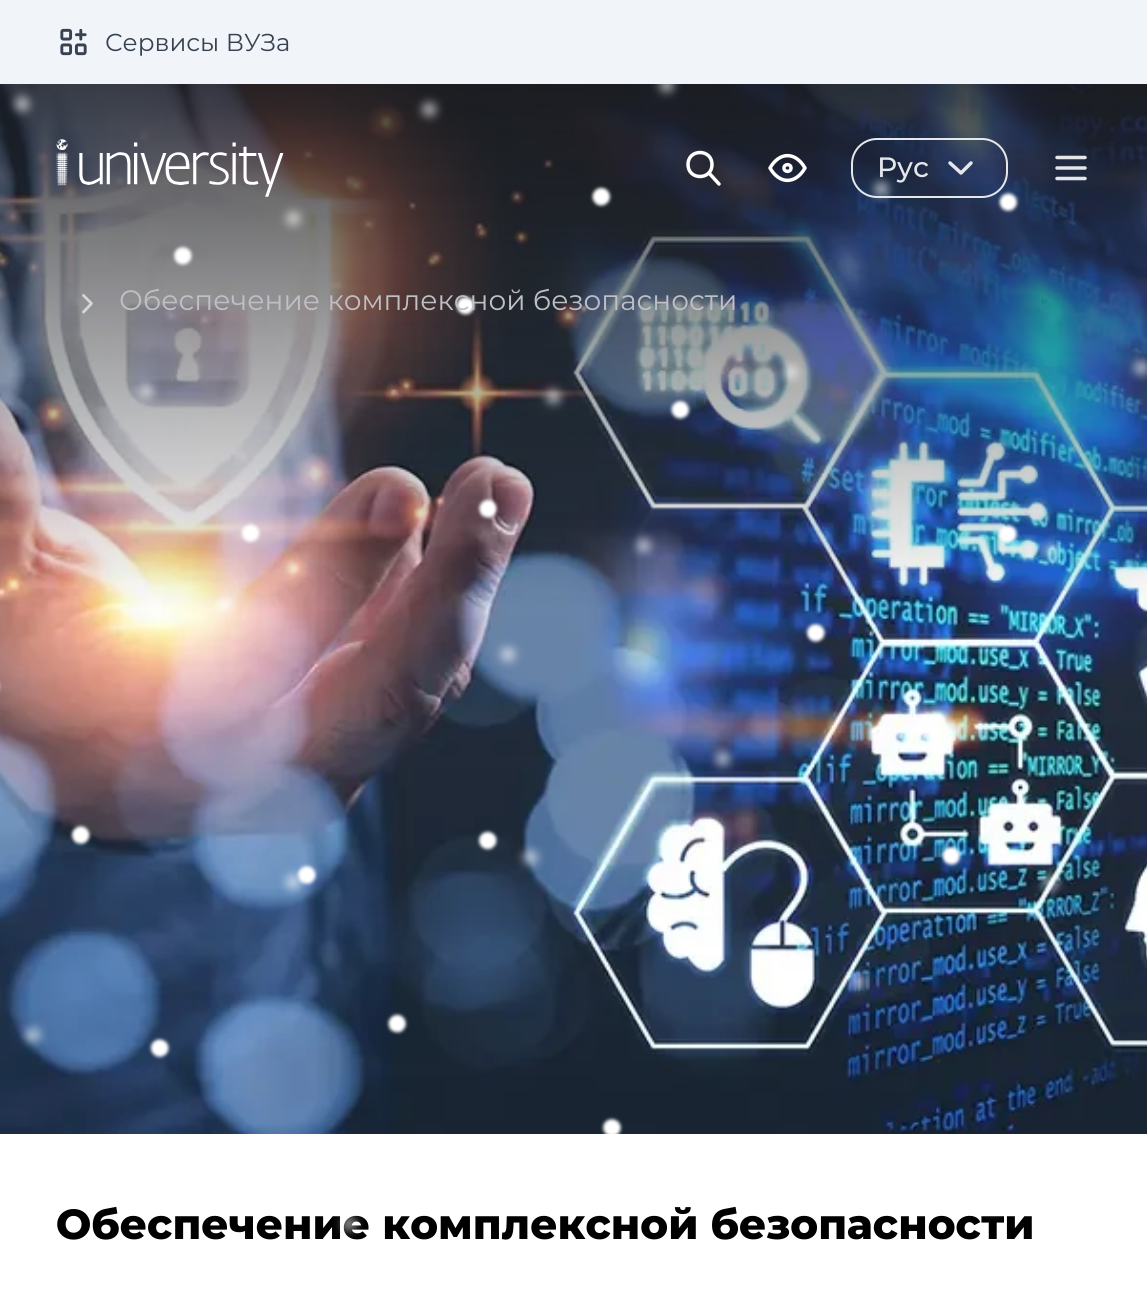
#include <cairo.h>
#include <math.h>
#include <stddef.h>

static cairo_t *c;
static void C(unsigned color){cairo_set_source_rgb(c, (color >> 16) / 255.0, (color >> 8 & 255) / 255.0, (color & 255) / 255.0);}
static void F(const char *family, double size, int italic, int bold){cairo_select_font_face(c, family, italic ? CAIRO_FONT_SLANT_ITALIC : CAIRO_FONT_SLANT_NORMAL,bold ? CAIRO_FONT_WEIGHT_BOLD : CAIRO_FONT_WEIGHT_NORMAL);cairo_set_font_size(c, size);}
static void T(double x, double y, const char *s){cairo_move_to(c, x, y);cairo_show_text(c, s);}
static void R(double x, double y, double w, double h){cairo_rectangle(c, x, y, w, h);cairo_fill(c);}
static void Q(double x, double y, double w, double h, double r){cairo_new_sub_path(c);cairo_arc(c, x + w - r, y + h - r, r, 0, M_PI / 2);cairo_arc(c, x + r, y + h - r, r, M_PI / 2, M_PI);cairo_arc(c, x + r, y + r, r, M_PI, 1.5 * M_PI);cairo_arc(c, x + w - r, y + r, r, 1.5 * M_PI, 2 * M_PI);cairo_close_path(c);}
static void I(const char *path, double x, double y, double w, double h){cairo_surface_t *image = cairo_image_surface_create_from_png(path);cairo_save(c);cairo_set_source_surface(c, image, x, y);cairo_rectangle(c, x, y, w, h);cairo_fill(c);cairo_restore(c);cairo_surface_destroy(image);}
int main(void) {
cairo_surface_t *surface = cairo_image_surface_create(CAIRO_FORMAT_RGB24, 1147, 1307);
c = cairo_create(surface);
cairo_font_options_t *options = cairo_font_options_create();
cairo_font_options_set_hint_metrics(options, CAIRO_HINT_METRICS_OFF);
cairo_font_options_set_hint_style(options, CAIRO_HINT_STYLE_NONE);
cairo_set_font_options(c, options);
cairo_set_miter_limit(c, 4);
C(0xffffff);
cairo_paint(c);
C(0xf1f5f9);
R(0,0,1147,84);
I("1.png",60,28,27,28);
F("Montserrat",24.5,0,0);
C(0x374151);
T(105,51,"Сервисы ВУЗа");
I("4.png",0,84,1147,1050);
F("Montserrat ExtraBold",42,0,0);
C(0x000000);
T(56,1239,"Обеспечение комплексной безопасности");
I("3.png",0,84,1147,1154);
I("2.png",56,139,228,58);
cairo_new_path(c);
cairo_move_to(c,688,164.5);
cairo_curve_to(c,688,180.5,712,180.5,712,164.5);
cairo_curve_to(c,712,148.5,688,148.5,688,164.5);
cairo_move_to(c,719,184);
cairo_line_to(c,709,173);
C(0xffffff);
cairo_set_line_width(c,3.5);
cairo_set_line_cap(c,CAIRO_LINE_CAP_ROUND);
cairo_set_line_join(c,CAIRO_LINE_JOIN_ROUND);
cairo_stroke(c);
cairo_new_path(c);
cairo_move_to(c,784,168);
cairo_curve_to(c,784,172.5,791,172.5,791,168);
cairo_curve_to(c,791,163.5,784,163.5,784,168);
cairo_move_to(c,805,168);
cairo_curve_to(c,795.5,184.5,779.5,184.5,770,168);
cairo_curve_to(c,779.5,151.5,795.5,151.5,805,168);
cairo_stroke(c);
Q(852,139,155,58,25);
C(0xe5e7eb);
cairo_set_line_width(c,2);
cairo_set_line_cap(c,CAIRO_LINE_CAP_BUTT);
cairo_set_line_join(c,CAIRO_LINE_JOIN_MITER);
cairo_stroke(c);
F("Montserrat Medium",28,0,0);
T(877,177,"Рус");
cairo_new_path(c);
cairo_move_to(c,950,163);
cairo_line_to(c,961,173);
cairo_line_to(c,971,163);
cairo_set_line_width(c,3.5);
cairo_set_line_cap(c,CAIRO_LINE_CAP_ROUND);
cairo_set_line_join(c,CAIRO_LINE_JOIN_ROUND);
cairo_stroke(c);
cairo_new_path(c);
cairo_move_to(c,1057,157.5);
cairo_line_to(c,1085,157.5);
cairo_move_to(c,1057,168);
cairo_line_to(c,1085,168);
cairo_move_to(c,1057,178.5);
cairo_line_to(c,1085,178.5);
cairo_stroke(c);
cairo_new_path(c);
cairo_move_to(c,83.5,295.5);
cairo_line_to(c,91.5,303.5);
cairo_line_to(c,83.5,312);
cairo_set_source_rgba(c,0.898,0.906,0.922,0.8);
cairo_set_line_width(c,2.8);
cairo_stroke(c);
F("Montserrat",28,0,0);
C(0xbfbfc4);
T(119,310,"Обеспечение комплексной безопасности");
cairo_surface_write_to_png(surface, "o.png");
cairo_font_options_destroy(options);
cairo_destroy(c);
cairo_surface_destroy(surface);
return 0;
}
